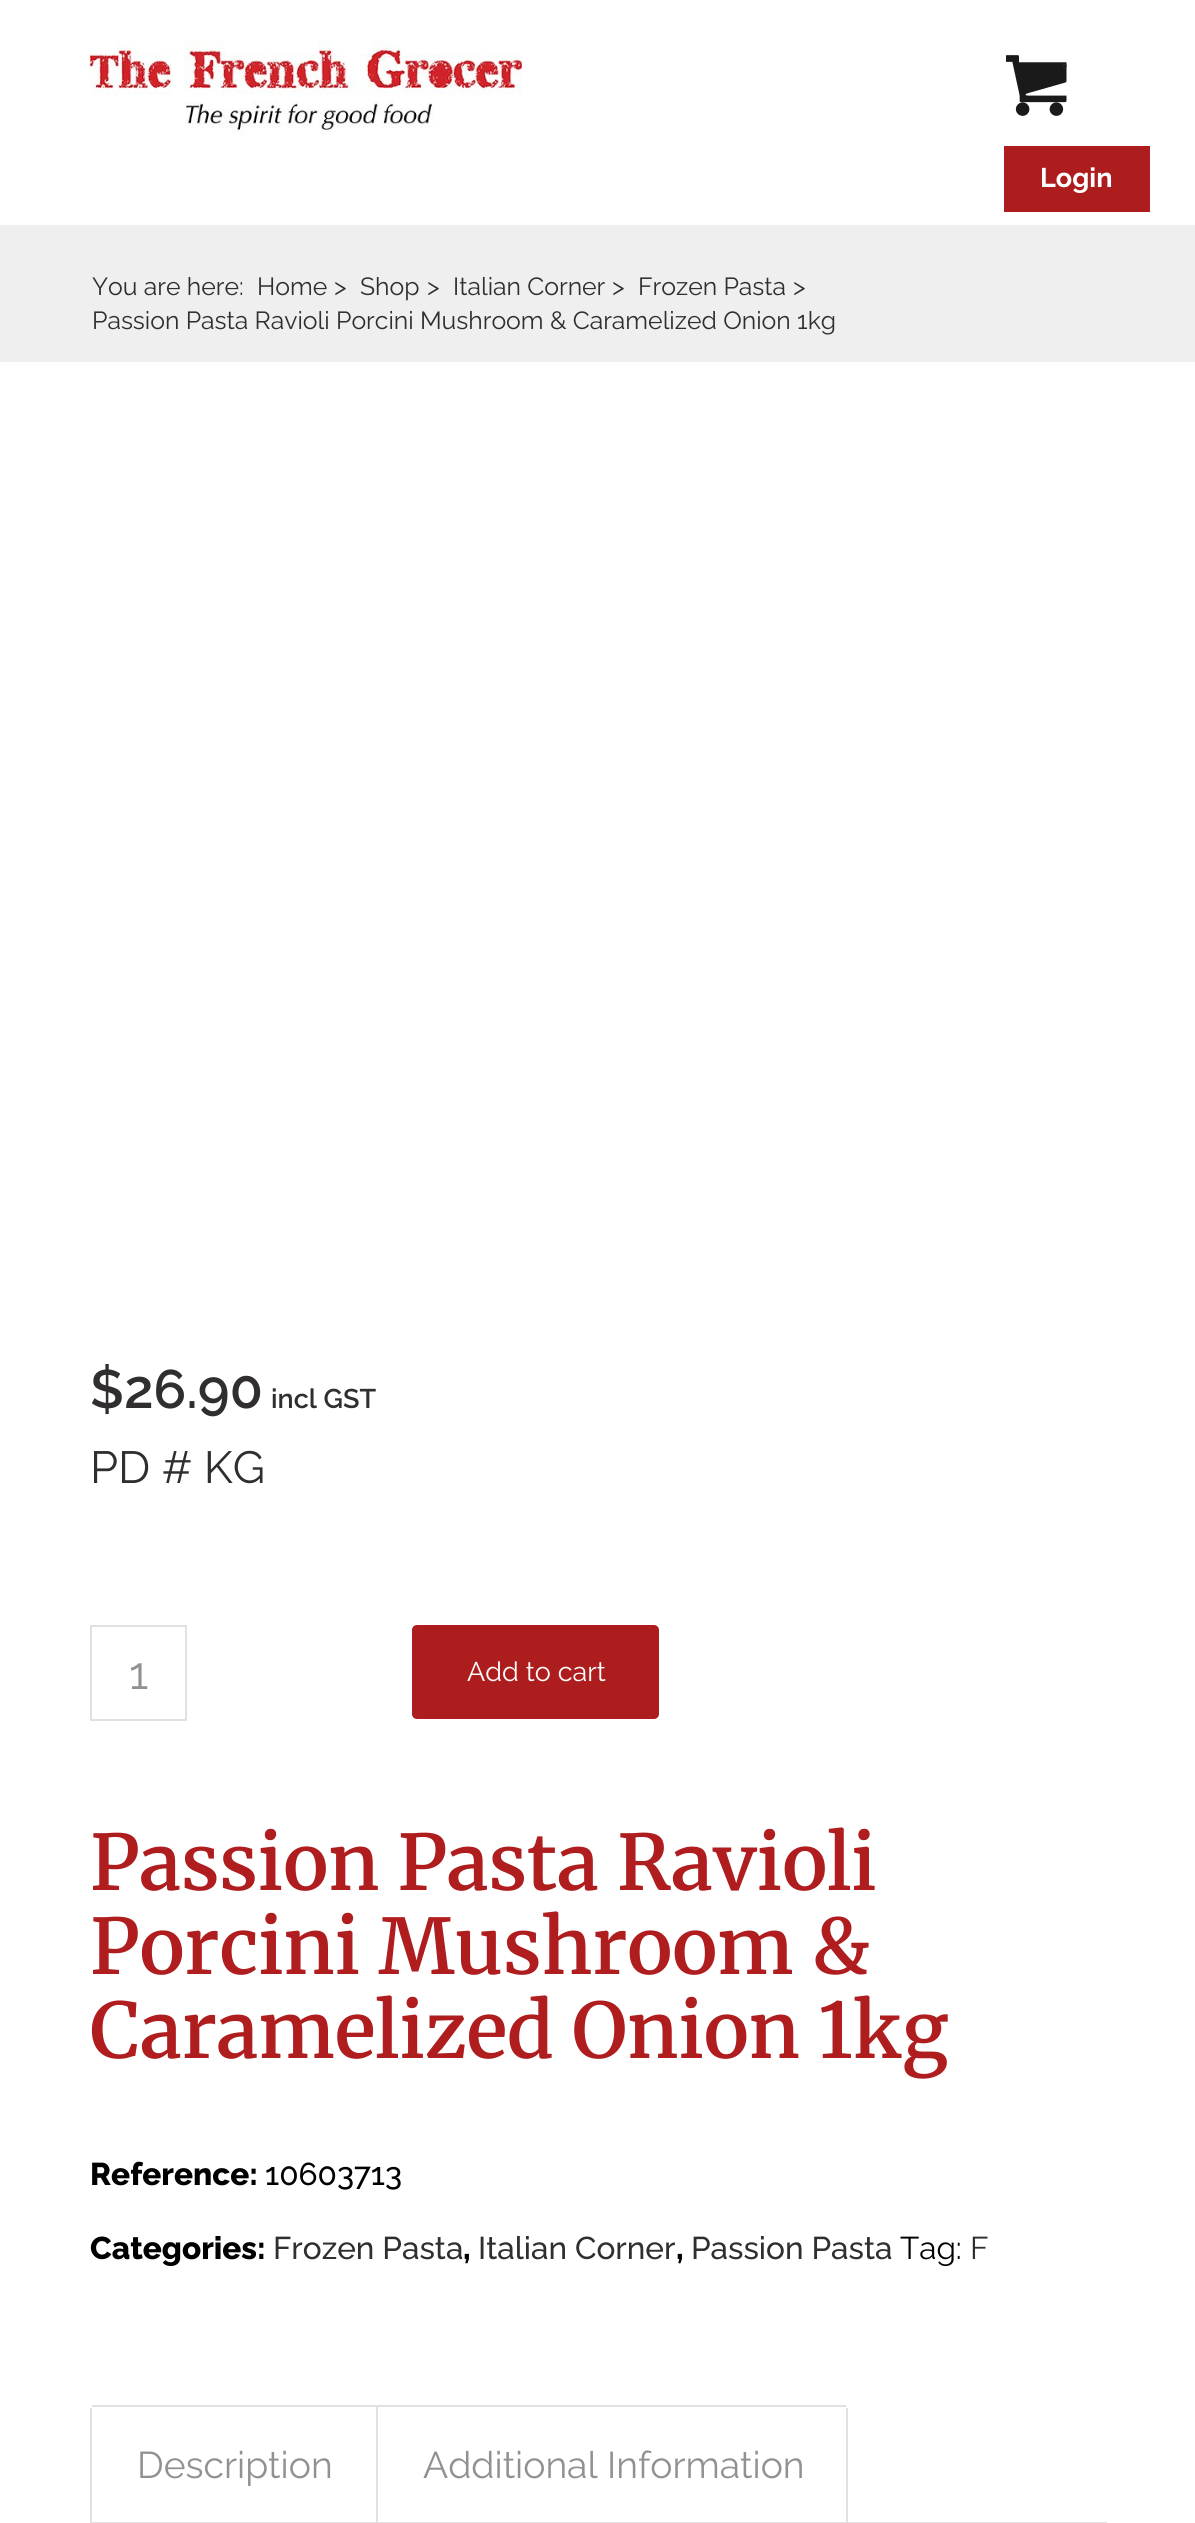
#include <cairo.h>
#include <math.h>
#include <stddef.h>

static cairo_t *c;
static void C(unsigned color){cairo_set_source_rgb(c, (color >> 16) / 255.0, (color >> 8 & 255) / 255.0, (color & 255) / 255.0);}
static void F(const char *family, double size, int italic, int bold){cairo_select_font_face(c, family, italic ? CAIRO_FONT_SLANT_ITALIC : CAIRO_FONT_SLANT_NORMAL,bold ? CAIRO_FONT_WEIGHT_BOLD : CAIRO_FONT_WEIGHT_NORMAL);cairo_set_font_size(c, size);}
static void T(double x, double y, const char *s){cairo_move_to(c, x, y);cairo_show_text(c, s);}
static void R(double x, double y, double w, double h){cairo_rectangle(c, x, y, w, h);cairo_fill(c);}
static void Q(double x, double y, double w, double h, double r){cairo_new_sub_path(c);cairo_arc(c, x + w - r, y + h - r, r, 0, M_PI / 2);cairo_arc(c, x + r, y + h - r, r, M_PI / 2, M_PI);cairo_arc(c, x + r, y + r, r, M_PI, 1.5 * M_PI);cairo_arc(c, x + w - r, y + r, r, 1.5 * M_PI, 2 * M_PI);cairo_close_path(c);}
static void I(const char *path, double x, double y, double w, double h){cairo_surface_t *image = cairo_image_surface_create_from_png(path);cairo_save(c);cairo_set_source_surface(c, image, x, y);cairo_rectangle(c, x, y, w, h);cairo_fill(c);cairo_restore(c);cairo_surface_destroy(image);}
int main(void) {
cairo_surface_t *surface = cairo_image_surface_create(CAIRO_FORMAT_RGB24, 1195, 2523);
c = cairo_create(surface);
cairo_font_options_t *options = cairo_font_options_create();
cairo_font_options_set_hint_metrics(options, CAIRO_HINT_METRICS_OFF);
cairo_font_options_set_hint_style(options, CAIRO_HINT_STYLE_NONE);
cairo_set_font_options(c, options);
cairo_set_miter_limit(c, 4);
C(0xffffff);
cairo_paint(c);
I("1.png",90,40,432,95);
I("2.png",1006,55,61,61);
F("Raleway",7,0,0);
C(0x383838);
T(1063,68,"0");
C(0xae1d1d);
R(1004,146,146,66);
F("Raleway",27,0,1);
C(0xffffff);
T(1040,187,"Login");
C(0xefefef);
R(0,225,1195,137);
F("Raleway",24.75,0,0);
C(0x302e2f);
T(92,295,"You are here:");
T(257,295,"Home");
T(334,295,">");
T(360,295,"Shop");
T(427,295,">");
T(453,295,"Italian Corner");
T(612,295,">");
T(638,295,"Frozen Pasta");
T(793,295,">");
T(92,329,"Passion Pasta Ravioli Porcini Mushroom & Caramelized Onion 1kg");
F("Raleway SemiBold",54,0,0);
T(90,1408,"$26.90");
F("Raleway SemiBold",27,0,0);
T(271,1408,"incl GST");
F("Raleway",45,0,0);
T(90,1483,"PD # KG");
cairo_rectangle(c,91,1626,95,94);
C(0xe1e1e1);
cairo_stroke(c);
C(0x919191);
T(129,1689,"1");
C(0xae1d1d);
Q(412,1625,247,94,5);
cairo_fill(c);
F("Raleway",27,0,0);
C(0xffffff);
T(467,1681,"Add to cart");
F("Merriweather SemiBold",76.5,0,0);
C(0xaf1d1e);
T(90,1890,"Passion Pasta Ravioli");
T(90,1974,"Porcini Mushroom &");
T(90,2058,"Caramelized Onion 1kg");
F("Raleway ExtraBold",31.5,0,0);
C(0x000000);
T(90,2185,"Reference:");
F("Raleway Medium",31.5,0,0);
T(265,2185,"10603713");
F("Raleway ExtraBold",31.5,0,0);
T(90,2259,"Categories:");
F("Raleway Medium",31.5,0,0);
C(0x302e2f);
T(273,2259,"Frozen Pasta");
F("Raleway ExtraBold",31.5,0,0);
C(0x000000);
T(463,2259,",");
F("Raleway Medium",31.5,0,0);
C(0x302e2f);
T(478,2259,"Italian Corner");
F("Raleway ExtraBold",31.5,0,0);
C(0x000000);
T(676,2259,",");
F("Raleway Medium",31.5,0,0);
C(0x302e2f);
T(691,2259,"Passion Pasta");
F("Raleway",31.5,0,0);
C(0x000000);
T(900,2259,"Tag:");
C(0x302e2f);
T(970,2259,"F");
C(0xe1e1e1);
R(92,2405,286,2);
cairo_rectangle(c,91,2523,1015,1);
cairo_stroke(c);
R(376,2405,2,118);
R(90,2408,2,115);
F("Raleway",37.25,0,0);
C(0x919191);
T(137,2478,"Description");
C(0xe1e1e1);
R(376,2405,470,2);
R(846,2408,2,115);
C(0x919191);
T(423,2478,"Additional Information");
cairo_surface_write_to_png(surface, "o.png");
cairo_font_options_destroy(options);
cairo_destroy(c);
cairo_surface_destroy(surface);
return 0;
}
